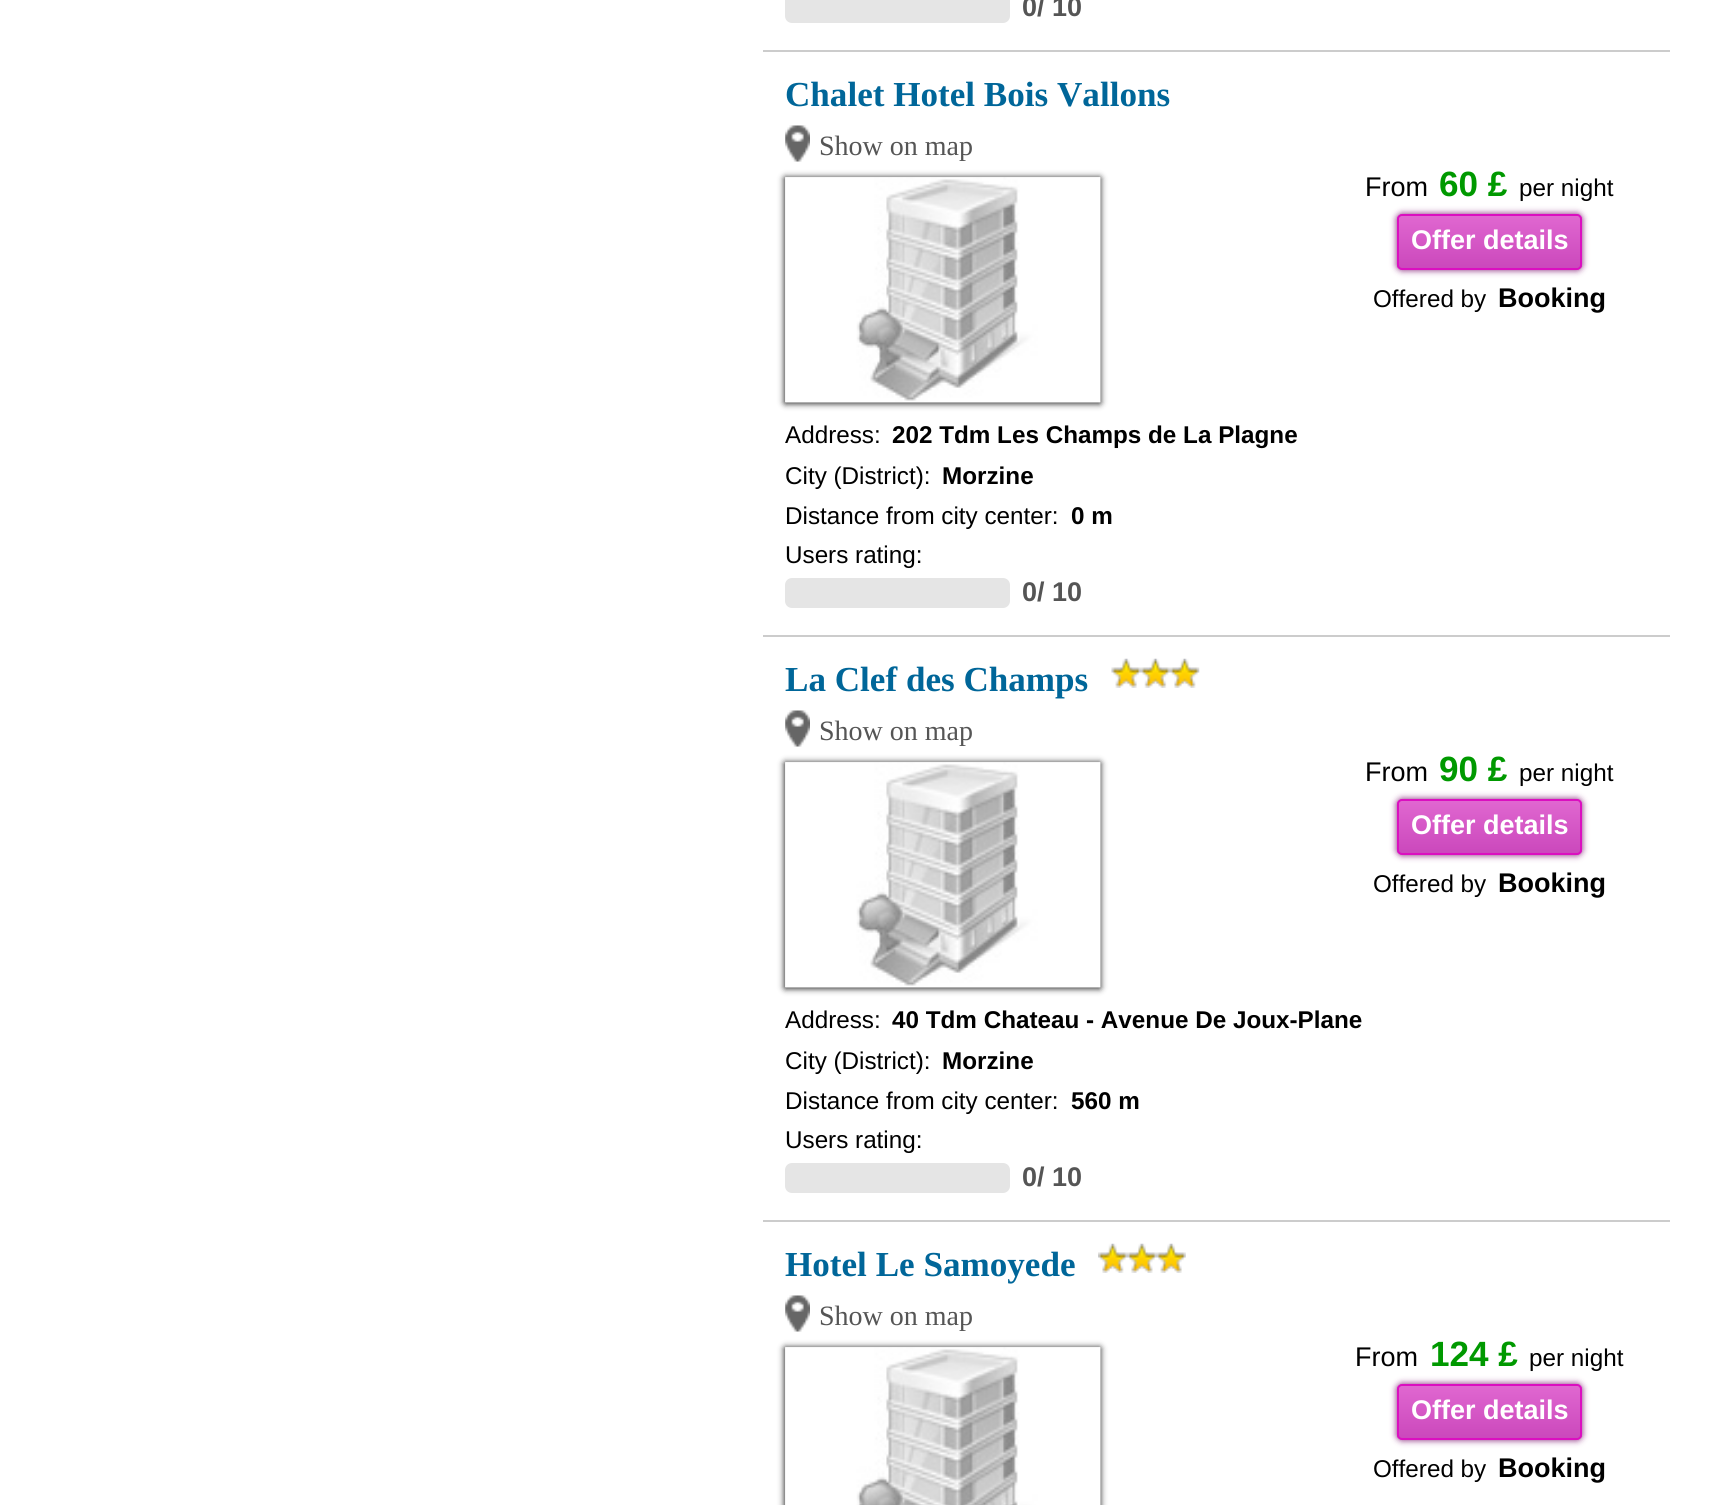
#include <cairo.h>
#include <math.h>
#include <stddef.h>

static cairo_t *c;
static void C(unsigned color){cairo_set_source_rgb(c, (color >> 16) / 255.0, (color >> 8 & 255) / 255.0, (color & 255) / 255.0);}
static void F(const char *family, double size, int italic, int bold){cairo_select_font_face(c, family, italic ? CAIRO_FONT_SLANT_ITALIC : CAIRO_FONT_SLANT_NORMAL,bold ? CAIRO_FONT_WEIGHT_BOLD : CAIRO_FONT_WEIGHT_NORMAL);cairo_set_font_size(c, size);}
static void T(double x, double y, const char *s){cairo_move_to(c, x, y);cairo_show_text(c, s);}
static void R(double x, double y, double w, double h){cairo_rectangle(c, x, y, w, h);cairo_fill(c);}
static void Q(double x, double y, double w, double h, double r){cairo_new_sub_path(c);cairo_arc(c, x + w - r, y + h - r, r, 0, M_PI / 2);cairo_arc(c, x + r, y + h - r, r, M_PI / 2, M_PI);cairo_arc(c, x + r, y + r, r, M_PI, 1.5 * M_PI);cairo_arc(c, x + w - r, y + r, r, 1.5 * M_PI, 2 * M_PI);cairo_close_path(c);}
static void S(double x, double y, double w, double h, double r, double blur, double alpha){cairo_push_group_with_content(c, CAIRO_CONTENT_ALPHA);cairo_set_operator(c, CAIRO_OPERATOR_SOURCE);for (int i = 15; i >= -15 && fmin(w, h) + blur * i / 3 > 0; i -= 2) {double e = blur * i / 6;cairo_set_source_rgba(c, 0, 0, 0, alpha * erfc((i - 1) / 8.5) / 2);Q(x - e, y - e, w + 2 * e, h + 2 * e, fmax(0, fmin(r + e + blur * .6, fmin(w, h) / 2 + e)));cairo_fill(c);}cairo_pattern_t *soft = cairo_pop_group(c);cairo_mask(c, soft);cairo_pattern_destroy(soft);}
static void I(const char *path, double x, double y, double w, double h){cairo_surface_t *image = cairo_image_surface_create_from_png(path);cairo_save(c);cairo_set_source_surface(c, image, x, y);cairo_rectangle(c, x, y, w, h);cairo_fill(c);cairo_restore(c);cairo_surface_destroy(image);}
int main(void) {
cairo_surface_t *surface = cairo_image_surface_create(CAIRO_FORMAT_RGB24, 1711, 1505);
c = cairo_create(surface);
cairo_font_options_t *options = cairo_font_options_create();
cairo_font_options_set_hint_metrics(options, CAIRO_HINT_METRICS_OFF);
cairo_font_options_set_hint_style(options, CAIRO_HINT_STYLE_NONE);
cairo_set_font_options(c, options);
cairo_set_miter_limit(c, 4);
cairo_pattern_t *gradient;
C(0xffffff);
cairo_paint(c);
C(0xcccccc);
R(763,50,907,2);
C(0xe5e5e5);
Q(785,-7,225,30,7);
cairo_fill(c);
F("Liberation Sans",27,0,1);
C(0x555555);
T(1022,16,"0/ 10");
C(0xcccccc);
R(763,635,907,2);
F("Liberation Serif",35.1,0,1);
C(0x006699);
T(785,106,"Chalet Hotel Bois Vallons");
I("1.png",785,125,25,37);
F("Liberation Serif",28,0,0);
C(0x555555);
T(819,155,"Show on map");
C(0x000000);
S(785,178,315,225,0,3.5,1);
I("2.png",785,177,316,226);
I("3.png",785,177,316,226);
F("Liberation Sans",27,0,0);
C(0x000000);
T(1365,196,"From");
F("Liberation Sans",35.1,0,1);
C(0x009900);
T(1439,196,"60 £");
F("Liberation Sans",24.25,0,0);
C(0x000000);
T(1519,196,"per night");
C(0x821a75);
S(1397,214,185,56,5,3.5,1);
cairo_save(c);
Q(1397,214,185,56,5);
cairo_clip(c);
gradient = cairo_pattern_create_linear(1490,216,1490,268);
cairo_pattern_add_color_stop_rgba(gradient,0,0.878,0.404,0.816,1);
cairo_pattern_add_color_stop_rgba(gradient,1,0.796,0.282,0.737,1);
cairo_set_source(c,gradient);
cairo_pattern_destroy(gradient);
R(1397,216,185,52);
cairo_restore(c);
Q(1398,215,183,54,4);
C(0xdb0fc0);
cairo_stroke(c);
F("Liberation Sans",27,0,1);
C(0xffffff);
T(1411,249,"Offer details");
F("Liberation Sans",24.25,0,0);
C(0x000000);
T(1373,307,"Offered by");
F("Liberation Sans",27,0,1);
T(1498,307,"Booking");
F("Liberation Sans",24.25,0,0);
T(785,443,"Address:");
F("Liberation Sans",24.25,0,1);
T(892,443,"202 Tdm Les Champs de La Plagne");
F("Liberation Sans",24.25,0,0);
T(785,484,"City (District):");
F("Liberation Sans",24.25,0,1);
T(942,484,"Morzine");
F("Liberation Sans",24.25,0,0);
T(785,524,"Distance from city center:");
F("Liberation Sans",24.25,0,1);
T(1071,524,"0 m");
F("Liberation Sans",24.25,0,0);
T(785,563,"Users rating:");
C(0xe5e5e5);
Q(785,578,225,30,7);
cairo_fill(c);
F("Liberation Sans",27,0,1);
C(0x555555);
T(1022,601,"0/ 10");
C(0xcccccc);
R(763,1220,907,2);
F("Liberation Serif",35.1,0,1);
C(0x006699);
T(785,691,"La Clef des Champs");
I("4.png",1111,658,89,30);
I("1.png",785,710,25,37);
F("Liberation Serif",28,0,0);
C(0x555555);
T(819,740,"Show on map");
C(0x000000);
S(785,763,315,225,0,3.5,1);
I("2.png",785,762,316,226);
I("3.png",785,762,316,226);
F("Liberation Sans",27,0,0);
C(0x000000);
T(1365,781,"From");
F("Liberation Sans",35.1,0,1);
C(0x009900);
T(1439,781,"90 £");
F("Liberation Sans",24.25,0,0);
C(0x000000);
T(1519,781,"per night");
C(0x821a75);
S(1397,799,185,56,5,3.5,1);
cairo_save(c);
Q(1397,799,185,56,5);
cairo_clip(c);
gradient = cairo_pattern_create_linear(1490,801,1490,853);
cairo_pattern_add_color_stop_rgba(gradient,0,0.878,0.404,0.816,1);
cairo_pattern_add_color_stop_rgba(gradient,1,0.796,0.282,0.737,1);
cairo_set_source(c,gradient);
cairo_pattern_destroy(gradient);
R(1397,801,185,52);
cairo_restore(c);
Q(1398,800,183,54,4);
C(0xdb0fc0);
cairo_stroke(c);
F("Liberation Sans",27,0,1);
C(0xffffff);
T(1411,834,"Offer details");
F("Liberation Sans",24.25,0,0);
C(0x000000);
T(1373,892,"Offered by");
F("Liberation Sans",27,0,1);
T(1498,892,"Booking");
F("Liberation Sans",24.25,0,0);
T(785,1028,"Address:");
F("Liberation Sans",24.25,0,1);
T(892,1028,"40 Tdm Chateau - Avenue De Joux-Plane");
F("Liberation Sans",24.25,0,0);
T(785,1069,"City (District):");
F("Liberation Sans",24.25,0,1);
T(942,1069,"Morzine");
F("Liberation Sans",24.25,0,0);
T(785,1109,"Distance from city center:");
F("Liberation Sans",24.25,0,1);
T(1071,1109,"560 m");
F("Liberation Sans",24.25,0,0);
T(785,1148,"Users rating:");
C(0xe5e5e5);
Q(785,1163,225,30,7);
cairo_fill(c);
F("Liberation Sans",27,0,1);
C(0x555555);
T(1022,1186,"0/ 10");
F("Liberation Serif",35.1,0,1);
C(0x006699);
T(785,1276,"Hotel Le Samoyede");
I("5.png",1098,1243,88,30);
I("1.png",785,1295,25,37);
F("Liberation Serif",28,0,0);
C(0x555555);
T(819,1325,"Show on map");
C(0x000000);
S(785,1348,315,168,0,3.5,1);
I("6.png",785,1347,316,158);
I("7.png",785,1347,316,158);
F("Liberation Sans",27,0,0);
C(0x000000);
T(1355,1366,"From");
F("Liberation Sans",35.1,0,1);
C(0x009900);
T(1430,1366,"124 £");
F("Liberation Sans",24.25,0,0);
C(0x000000);
T(1529,1366,"per night");
C(0x821a75);
S(1397,1384,185,56,5,3.5,1);
cairo_save(c);
Q(1397,1384,185,56,5);
cairo_clip(c);
gradient = cairo_pattern_create_linear(1490,1386,1490,1438);
cairo_pattern_add_color_stop_rgba(gradient,0,0.878,0.404,0.816,1);
cairo_pattern_add_color_stop_rgba(gradient,1,0.796,0.282,0.737,1);
cairo_set_source(c,gradient);
cairo_pattern_destroy(gradient);
R(1397,1386,185,52);
cairo_restore(c);
Q(1398,1385,183,54,4);
C(0xdb0fc0);
cairo_stroke(c);
F("Liberation Sans",27,0,1);
C(0xffffff);
T(1411,1419,"Offer details");
F("Liberation Sans",24.25,0,0);
C(0x000000);
T(1373,1477,"Offered by");
F("Liberation Sans",27,0,1);
T(1498,1477,"Booking");
cairo_surface_write_to_png(surface, "o.png");
cairo_font_options_destroy(options);
cairo_destroy(c);
cairo_surface_destroy(surface);
return 0;
}
